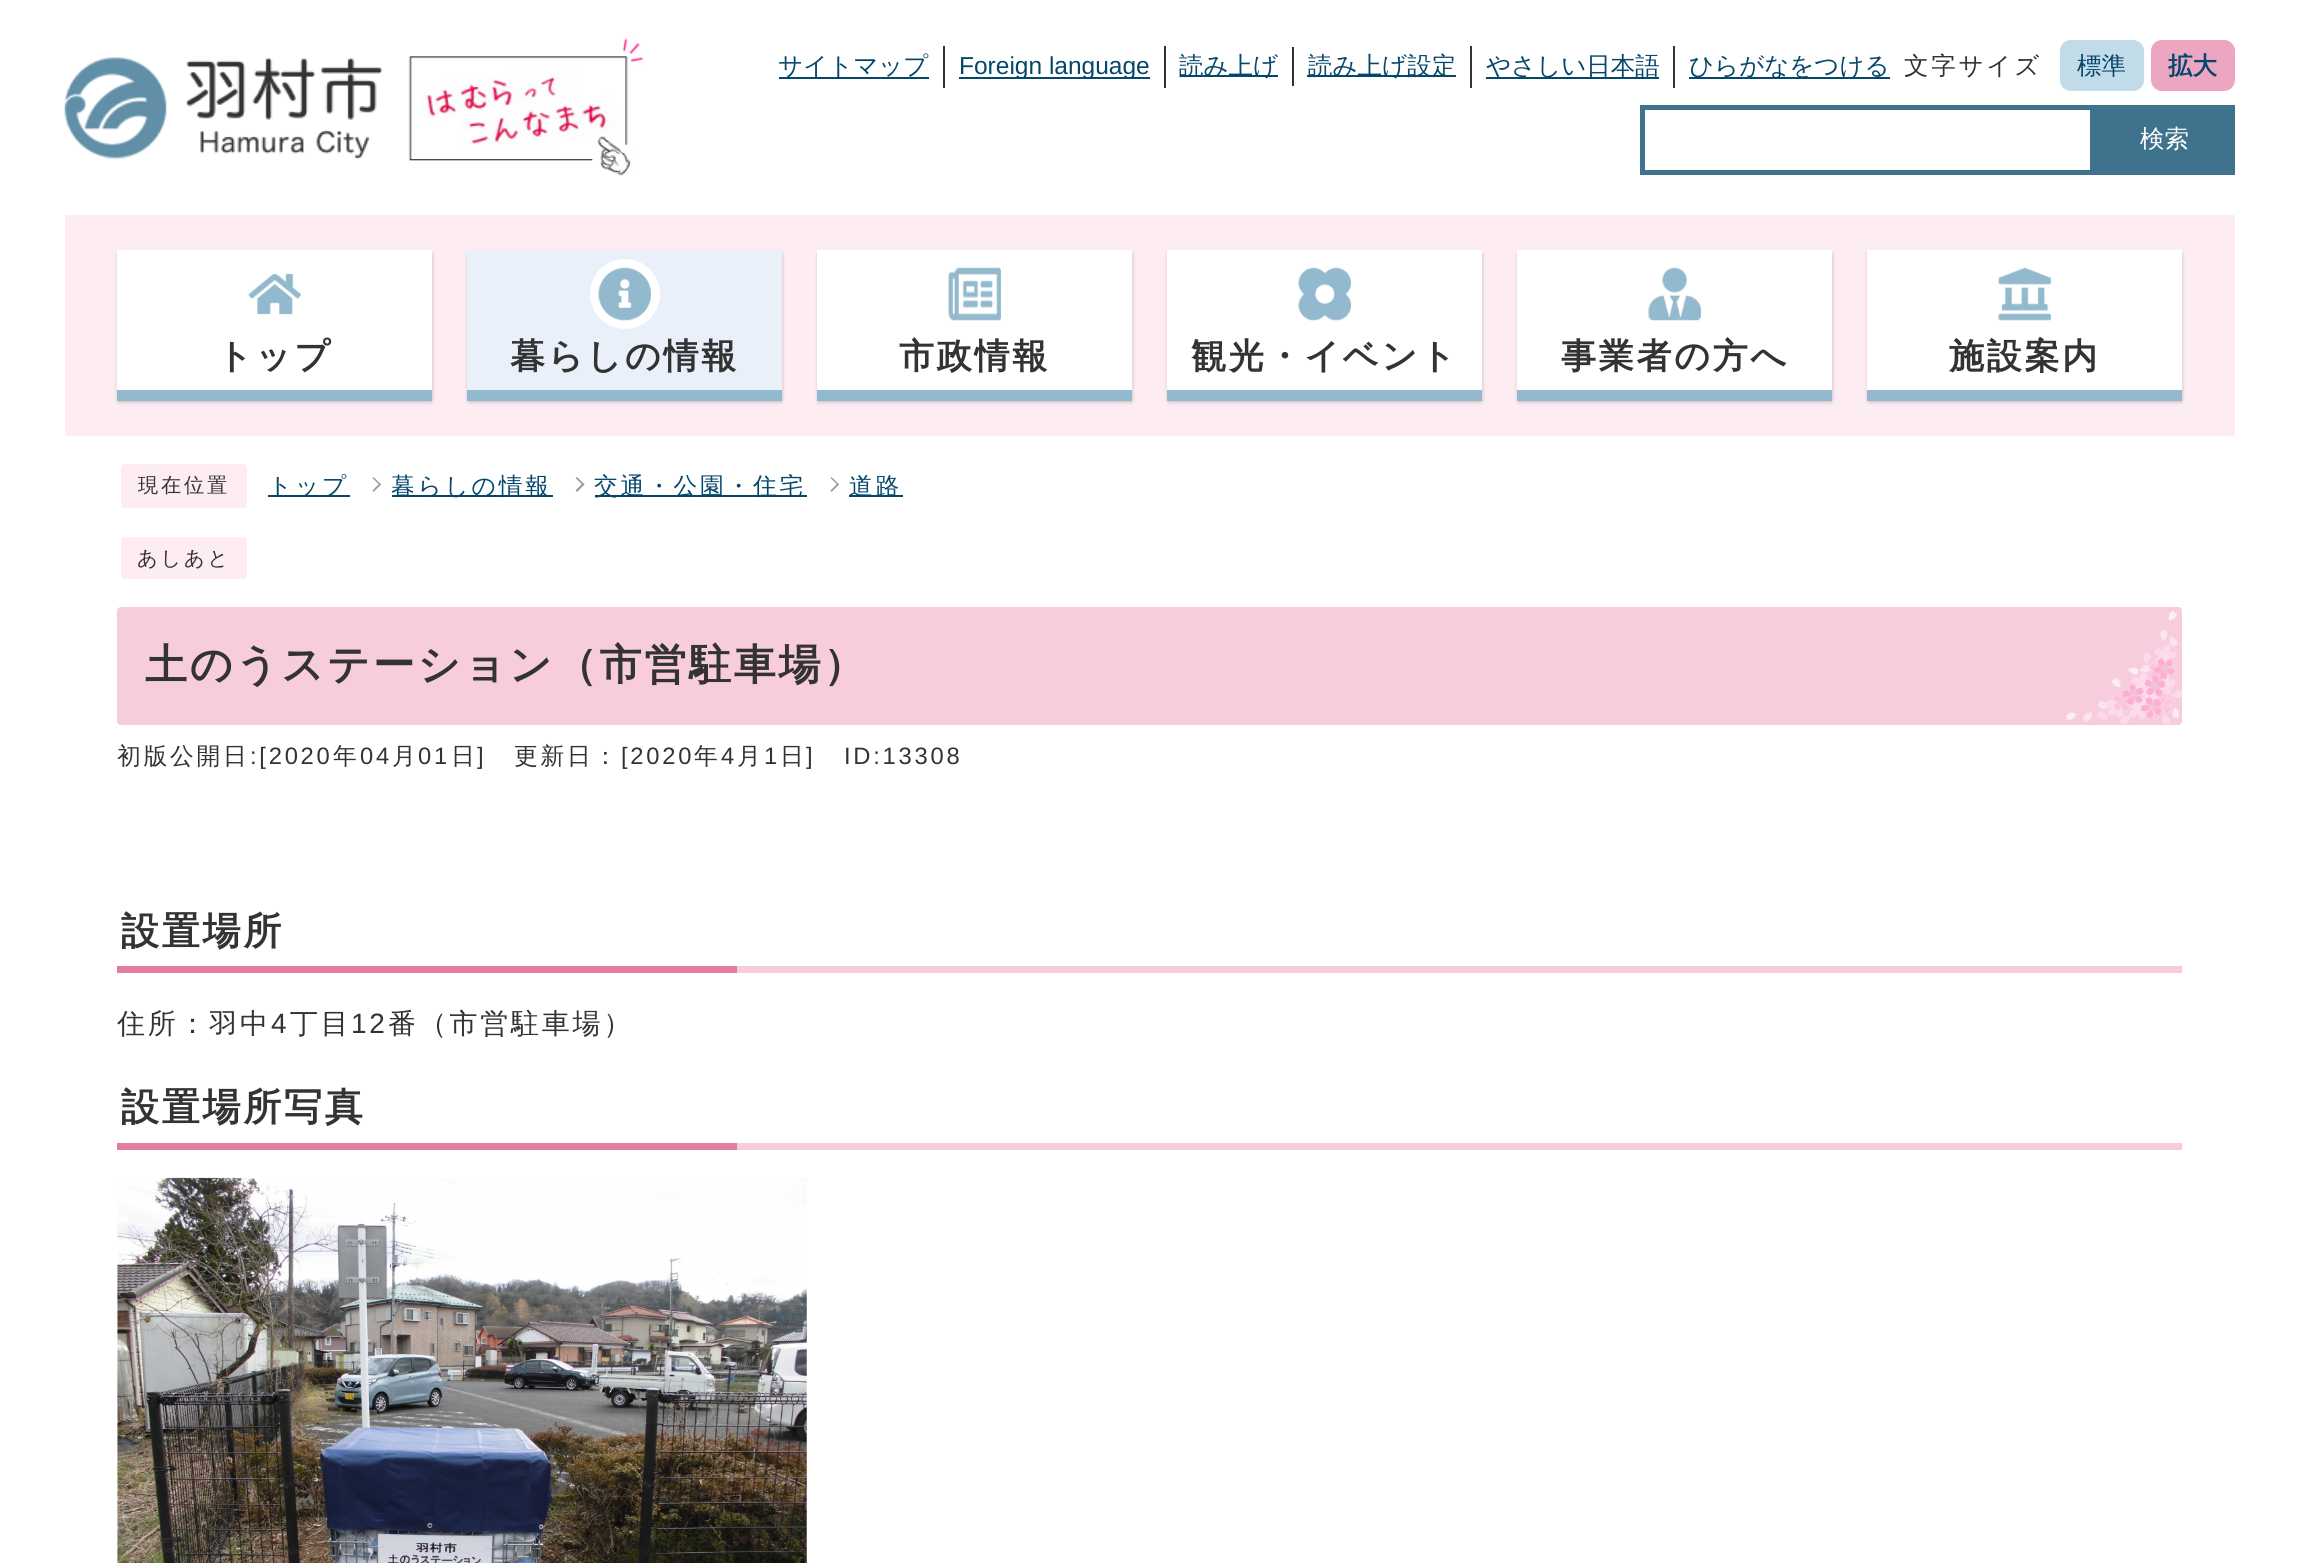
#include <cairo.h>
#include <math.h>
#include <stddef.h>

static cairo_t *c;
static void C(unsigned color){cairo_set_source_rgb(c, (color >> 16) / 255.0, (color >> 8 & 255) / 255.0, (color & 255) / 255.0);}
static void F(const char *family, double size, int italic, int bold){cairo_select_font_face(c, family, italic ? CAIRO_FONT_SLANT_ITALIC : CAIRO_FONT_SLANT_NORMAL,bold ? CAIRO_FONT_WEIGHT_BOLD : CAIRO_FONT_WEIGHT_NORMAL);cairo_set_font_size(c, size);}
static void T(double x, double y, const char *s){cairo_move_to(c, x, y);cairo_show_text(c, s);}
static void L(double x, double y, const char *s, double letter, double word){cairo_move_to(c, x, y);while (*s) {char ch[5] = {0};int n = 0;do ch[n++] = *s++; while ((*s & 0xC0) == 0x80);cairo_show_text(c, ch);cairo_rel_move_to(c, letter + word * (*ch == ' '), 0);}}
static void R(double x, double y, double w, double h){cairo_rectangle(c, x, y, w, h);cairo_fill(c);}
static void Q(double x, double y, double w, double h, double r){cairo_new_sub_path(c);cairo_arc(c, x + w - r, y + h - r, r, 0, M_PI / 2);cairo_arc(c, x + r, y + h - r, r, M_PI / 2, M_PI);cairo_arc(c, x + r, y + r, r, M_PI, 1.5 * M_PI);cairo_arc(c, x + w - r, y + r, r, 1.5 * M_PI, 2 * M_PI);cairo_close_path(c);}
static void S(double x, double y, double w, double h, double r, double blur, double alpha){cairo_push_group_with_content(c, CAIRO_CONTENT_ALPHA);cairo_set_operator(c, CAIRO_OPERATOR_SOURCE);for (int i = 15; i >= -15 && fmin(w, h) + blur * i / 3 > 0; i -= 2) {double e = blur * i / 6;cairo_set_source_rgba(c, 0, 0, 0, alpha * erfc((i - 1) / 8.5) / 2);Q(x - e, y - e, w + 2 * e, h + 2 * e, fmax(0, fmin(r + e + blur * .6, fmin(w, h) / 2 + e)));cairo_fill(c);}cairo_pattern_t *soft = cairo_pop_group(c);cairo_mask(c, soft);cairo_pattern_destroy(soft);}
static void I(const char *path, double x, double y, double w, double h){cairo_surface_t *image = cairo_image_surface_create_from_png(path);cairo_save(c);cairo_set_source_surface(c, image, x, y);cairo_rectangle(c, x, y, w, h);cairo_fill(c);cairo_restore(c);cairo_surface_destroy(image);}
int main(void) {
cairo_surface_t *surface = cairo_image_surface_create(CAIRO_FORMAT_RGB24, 2299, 1563);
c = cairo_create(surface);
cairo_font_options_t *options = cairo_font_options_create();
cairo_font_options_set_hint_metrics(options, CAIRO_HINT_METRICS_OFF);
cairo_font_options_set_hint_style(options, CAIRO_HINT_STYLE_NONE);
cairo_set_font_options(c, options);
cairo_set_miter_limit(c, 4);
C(0xffffff);
cairo_paint(c);
I("1.png",64,57,319,103);
I("2.png",408,38,235,138);
C(0x333333);
R(943,46,2,42);
C(0x04476b);
R(779,77,150,2);
F("WenQuanYi Zen Hei Medium",24.5,0,0);
T(778,74,"サイトマップ");
C(0x333333);
R(1164,46,2,42);
C(0x04476b);
R(959,77,191,2);
F("Liberation Sans",24.5,0,0);
T(959,74,"Foreign language");
C(0x333333);
R(1470,46,2,42);
R(1292,47,2,39);
C(0x04476b);
R(1180,75,98,2);
F("WenQuanYi Zen Hei Medium",24.5,0,0);
T(1179,74,"読み上げ");
R(1307,75,149,2);
T(1308,74,"読み上げ設定");
C(0x333333);
R(1673,46,2,42);
C(0x04476b);
R(1486,77,173,2);
T(1486,74,"やさしい日本語");
R(1689,77,201,2);
T(1689,74,"ひらがなをつける");
C(0x333333);
L(1904,74,"文字サイズ",2.75,0);
C(0xc2dbe8);
Q(2060,40,84,51,11);
cairo_fill(c);
C(0x04476b);
T(2077,74,"標準");
C(0xeda6c1);
Q(2151,40,84,51,11);
cairo_fill(c);
F("WenQuanYi Zen Hei",24.5,0,1);
C(0x04476b);
T(2168,74,"拡大");
cairo_rectangle(c,1642.5,107.5,450,65);
C(0x3f728d);
cairo_set_line_width(c,5);
cairo_stroke(c);
R(2095,105,140,70);
F("WenQuanYi Zen Hei Medium",24.5,0,0);
C(0xffffff);
T(2140,147,"検索");
C(0xfdecf2);
R(65,215,2170,221);
C(0x000000);
S(119,254,312,147,0,2.5,.33);
C(0xffffff);
R(117,250,315,140);
C(0x93b9ce);
R(117,390,315,11);
I("3.png",248,273,53,42);
F("WenQuanYi Zen Hei",35,0,1);
C(0x333333);
L(217,368,"トップ",2.75,0);
C(0x000000);
S(469,254,312,147,0,2.5,.33);
C(0x93b9ce);
R(467,390,315,11);
C(0xeaf0fa);
R(467,250,315,140);
C(0xffffff);
cairo_arc(c,625,294,35,0,2 * M_PI);
cairo_fill(c);
I("4.png",598,267,53,54);
C(0x333333);
L(510,368,"暮らしの情報",2.75,0);
C(0x000000);
S(819,254,312,147,0,2.5,.33);
C(0xffffff);
R(817,250,315,140);
C(0x93b9ce);
R(817,390,315,11);
I("5.png",948,267,53,54);
C(0x333333);
L(899,368,"市政情報",2.75,0);
C(0x000000);
S(1169,254,312,147,0,2.5,.33);
C(0xffffff);
R(1167,250,315,140);
C(0x93b9ce);
R(1167,390,315,11);
I("6.png",1298,267,53,54);
C(0x333333);
L(1191,368,"観光・イベント",2.75,0);
C(0x000000);
S(1519,254,312,147,0,2.5,.33);
C(0xffffff);
R(1517,250,315,140);
C(0x93b9ce);
R(1517,390,315,11);
I("7.png",1648,267,53,54);
C(0x333333);
L(1561,368,"事業者の方へ",2.75,0);
C(0x000000);
S(1869,254,312,147,0,2.5,.33);
C(0xffffff);
R(1867,250,315,140);
C(0x93b9ce);
R(1867,390,315,11);
I("8.png",1998,267,53,54);
C(0x333333);
L(1949,368,"施設案内",2.75,0);
C(0xfdecf2);
Q(121,464,126,44,4);
cairo_fill(c);
F("WenQuanYi Zen Hei Medium",20.25,0,0);
C(0x333333);
L(138,492,"現在位置",2.75,0);
C(0x04476b);
R(268,495,82,2);
F("WenQuanYi Zen Hei Medium",23.75,0,0);
L(268,494,"トップ",2.75,0);
C(0x999999);
cairo_new_path(c);
cairo_move_to(c,372.5,478);
cairo_line_to(c,373.5,477);
cairo_line_to(c,381,484.5);
cairo_line_to(c,380,485.5);
cairo_close_path(c);
cairo_fill(c);
cairo_new_path(c);
cairo_move_to(c,372.5,490.5);
cairo_line_to(c,380,483);
cairo_line_to(c,381,484.5);
cairo_line_to(c,373.5,492);
cairo_close_path(c);
cairo_fill(c);
C(0x04476b);
R(392,495,161,2);
L(391,494,"暮らしの情報",2.75,0);
C(0x999999);
cairo_new_path(c);
cairo_move_to(c,575.5,478);
cairo_line_to(c,577,477);
cairo_line_to(c,584.5,484.5);
cairo_line_to(c,583,485.5);
cairo_close_path(c);
cairo_fill(c);
cairo_new_path(c);
cairo_move_to(c,575.5,490.5);
cairo_line_to(c,583,483);
cairo_line_to(c,584.5,484.5);
cairo_line_to(c,577,492);
cairo_close_path(c);
cairo_fill(c);
C(0x04476b);
R(595,495,212,2);
L(594,494,"交通・公園・住宅",2.75,0);
C(0x999999);
cairo_new_path(c);
cairo_move_to(c,830.5,478);
cairo_line_to(c,831.5,477);
cairo_line_to(c,839,484.5);
cairo_line_to(c,838,485.5);
cairo_close_path(c);
cairo_fill(c);
cairo_new_path(c);
cairo_move_to(c,830.5,490.5);
cairo_line_to(c,838,483);
cairo_line_to(c,839,484.5);
cairo_line_to(c,831.5,492);
cairo_close_path(c);
cairo_fill(c);
C(0x04476b);
R(849,495,54,2);
L(849,494,"道路",2.75,0);
C(0xfdecf2);
Q(121,537,126,42,4);
cairo_fill(c);
F("WenQuanYi Zen Hei Medium",20.25,0,0);
C(0x333333);
L(137,565,"あしあと",2.75,0);
C(0xf7ccdc);
Q(117,607,2065,118,4);
cairo_fill(c);
I("9.png",2065,611,117,114);
F("WenQuanYi Zen Hei",42,0,1);
C(0x333333);
L(145,679,"土のうステーション（市営駐車場）",2.75,0);
F("WenQuanYi Zen Hei Medium",23.75,0,0);
L(117,764,"初版公開日",2.75,0);
F("Liberation Sans",23.75,0,0);
L(250,764,":[2020",2.75,0);
F("WenQuanYi Zen Hei Medium",23.75,0,0);
L(333,764,"年",2.75,0);
F("Liberation Sans",23.75,0,0);
L(360,764,"04",2.75,0);
F("WenQuanYi Zen Hei Medium",23.75,0,0);
L(392,764,"月",2.75,0);
F("Liberation Sans",23.75,0,0);
L(418,764,"01",2.75,0);
F("WenQuanYi Zen Hei Medium",23.75,0,0);
L(451,764,"日",2.75,0);
F("Liberation Sans",23.75,0,0);
L(477,764,"]",2.75,0);
F("WenQuanYi Zen Hei Medium",23.75,0,0);
L(514,764,"更新日：",2.75,0);
F("Liberation Sans",23.75,0,0);
L(621,764,"[2020",2.75,0);
F("WenQuanYi Zen Hei Medium",23.75,0,0);
L(694,764,"年",2.75,0);
F("Liberation Sans",23.75,0,0);
L(721,764,"4",2.75,0);
F("WenQuanYi Zen Hei Medium",23.75,0,0);
L(737,764,"月",2.75,0);
F("Liberation Sans",23.75,0,0);
L(764,764,"1",2.75,0);
F("WenQuanYi Zen Hei Medium",23.75,0,0);
L(780,764,"日",2.75,0);
F("Liberation Sans",23.75,0,0);
L(806,764,"]",2.75,0);
L(844,764,"ID:13308",2.75,0);
C(0xf7ccdc);
R(737,966,1445,7);
F("WenQuanYi Zen Hei",38,0,1);
C(0x333333);
L(121,944,"設置場所",2.75,0);
C(0xe07da1);
R(117,966,620,7);
F("WenQuanYi Zen Hei Medium",28,0,0);
C(0x333333);
L(117,1033,"住所：羽中",2.75,0);
F("Liberation Sans",28,0,0);
L(271,1033,"4",2.75,0);
F("WenQuanYi Zen Hei Medium",28,0,0);
L(290,1033,"丁目",2.75,0);
F("Liberation Sans",28,0,0);
L(351,1033,"12",2.75,0);
F("WenQuanYi Zen Hei Medium",28,0,0);
L(388,1033,"番（市営駐車場）",2.75,0);
C(0xf7ccdc);
R(737,1143,1445,7);
F("WenQuanYi Zen Hei",38,0,1);
C(0x333333);
L(121,1120,"設置場所写真",2.75,0);
C(0xe07da1);
R(117,1143,620,7);
I("10.png",117,1177,690,386);
cairo_surface_write_to_png(surface, "o.png");
cairo_font_options_destroy(options);
cairo_destroy(c);
cairo_surface_destroy(surface);
return 0;
}
